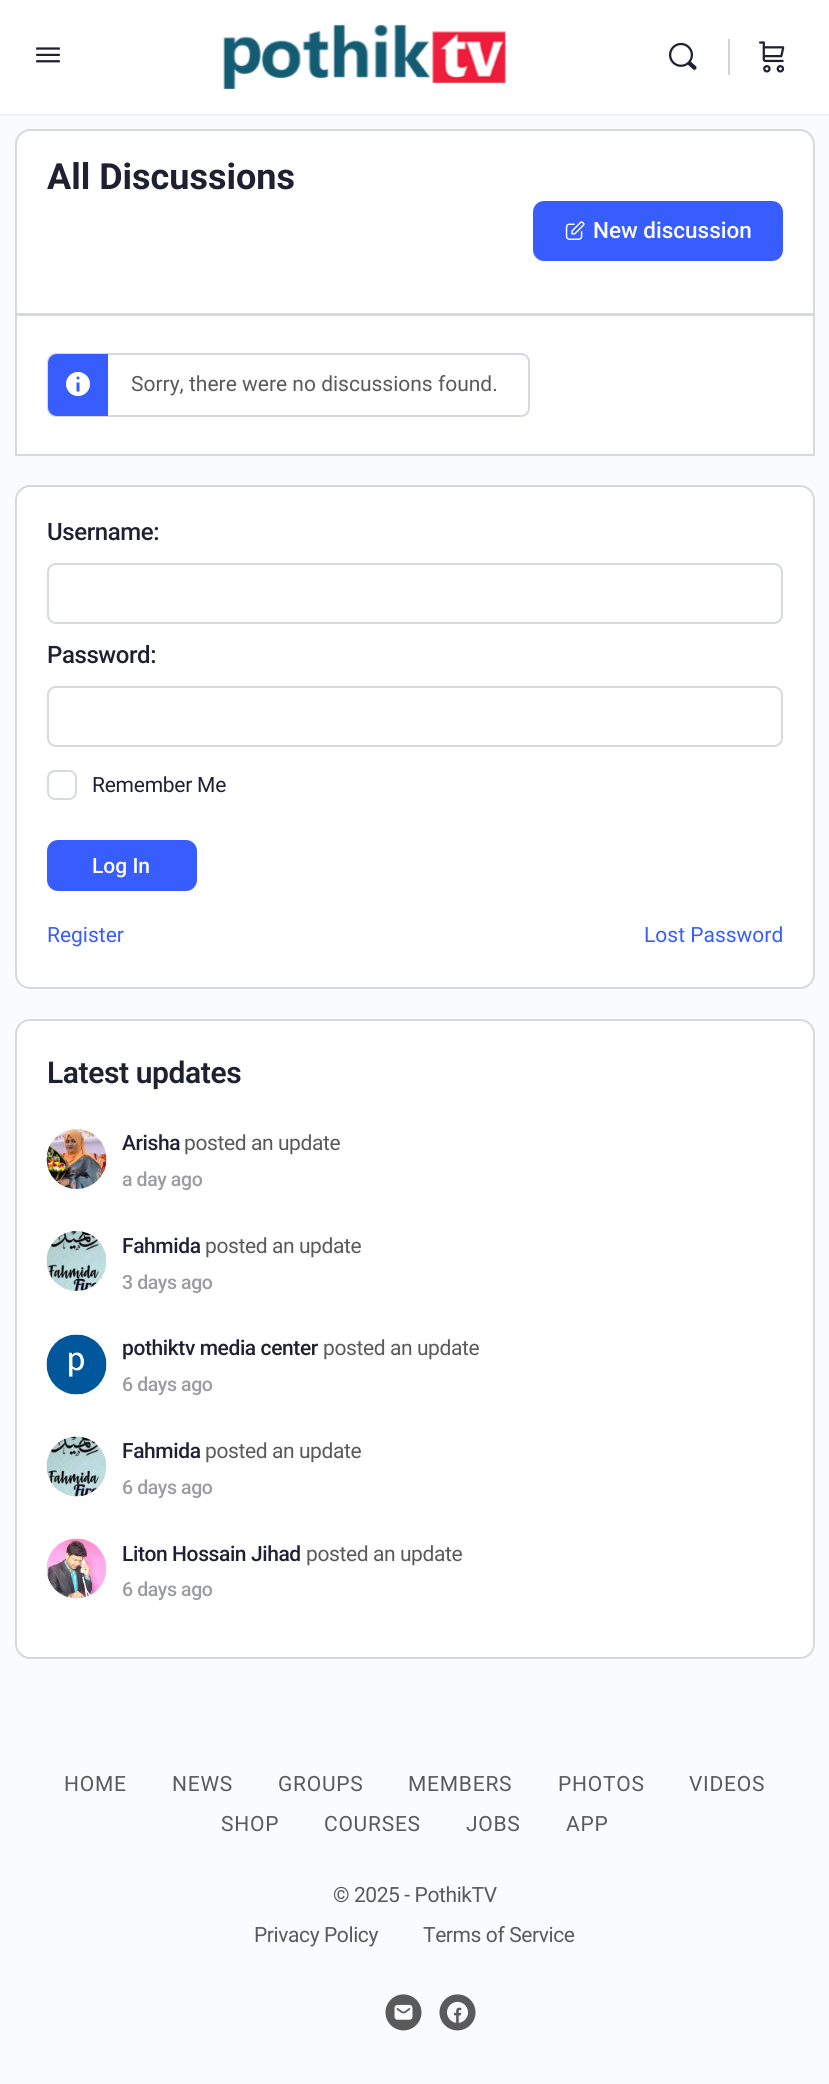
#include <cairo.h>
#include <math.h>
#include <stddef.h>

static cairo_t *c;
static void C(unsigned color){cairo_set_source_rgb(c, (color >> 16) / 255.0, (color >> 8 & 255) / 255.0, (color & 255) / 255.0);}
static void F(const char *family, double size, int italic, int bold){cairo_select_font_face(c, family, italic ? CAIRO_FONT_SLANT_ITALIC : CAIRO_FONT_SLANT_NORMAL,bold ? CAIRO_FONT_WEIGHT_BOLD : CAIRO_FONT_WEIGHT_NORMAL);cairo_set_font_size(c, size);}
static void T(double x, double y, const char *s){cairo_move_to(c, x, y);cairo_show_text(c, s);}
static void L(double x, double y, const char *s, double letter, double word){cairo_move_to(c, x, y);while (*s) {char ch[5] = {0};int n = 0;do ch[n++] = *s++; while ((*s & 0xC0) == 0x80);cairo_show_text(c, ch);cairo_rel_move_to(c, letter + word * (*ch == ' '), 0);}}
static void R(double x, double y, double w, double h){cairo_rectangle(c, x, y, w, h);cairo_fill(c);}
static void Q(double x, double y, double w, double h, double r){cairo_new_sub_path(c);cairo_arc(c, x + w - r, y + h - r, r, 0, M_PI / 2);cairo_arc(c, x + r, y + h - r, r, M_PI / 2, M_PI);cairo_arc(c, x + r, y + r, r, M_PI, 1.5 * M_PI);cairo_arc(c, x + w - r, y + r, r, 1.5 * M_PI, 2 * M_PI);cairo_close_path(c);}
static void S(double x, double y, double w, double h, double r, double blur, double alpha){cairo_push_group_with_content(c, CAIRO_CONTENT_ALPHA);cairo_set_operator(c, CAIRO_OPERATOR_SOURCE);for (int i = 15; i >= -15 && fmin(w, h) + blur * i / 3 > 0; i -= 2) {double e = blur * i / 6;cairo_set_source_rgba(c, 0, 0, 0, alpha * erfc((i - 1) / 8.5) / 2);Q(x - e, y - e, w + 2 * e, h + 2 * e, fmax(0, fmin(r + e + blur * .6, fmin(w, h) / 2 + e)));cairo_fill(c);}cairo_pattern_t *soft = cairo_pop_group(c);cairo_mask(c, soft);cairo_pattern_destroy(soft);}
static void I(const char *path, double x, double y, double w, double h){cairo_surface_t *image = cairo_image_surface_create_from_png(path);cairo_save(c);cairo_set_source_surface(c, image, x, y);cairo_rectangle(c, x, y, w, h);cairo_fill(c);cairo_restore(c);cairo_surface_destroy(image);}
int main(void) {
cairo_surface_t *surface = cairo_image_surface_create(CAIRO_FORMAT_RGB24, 829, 2084);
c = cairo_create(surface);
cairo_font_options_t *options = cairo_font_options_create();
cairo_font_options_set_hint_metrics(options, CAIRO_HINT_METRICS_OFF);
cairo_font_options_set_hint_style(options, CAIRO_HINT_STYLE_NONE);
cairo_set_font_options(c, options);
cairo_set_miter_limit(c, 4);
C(0xfafbfd);
cairo_paint(c);
C(0x41476c);
S(0,0,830,114,0,1,.15);
cairo_set_source_rgba(c,0.545,0.553,0.616,0.05);
cairo_new_path(c);
cairo_move_to(c,0,114);
cairo_line_to(c,0,116);
cairo_line_to(c,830,116);
cairo_line_to(c,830,2);
cairo_line_to(c,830,114);
cairo_close_path(c);
cairo_fill(c);
C(0xffffff);
R(0,0,829,114);
I("1.png",36,47,24,16);
I("2.png",223,24,283,66);
I("3.png",669,42,28,28);
C(0xd2d3d6);
R(728,39,2,36);
I("4.png",759,41,26,32);
C(0xffffff);
cairo_new_path(c);
cairo_move_to(c,30,130);
cairo_line_to(c,800,130);
cairo_curve_to(c,807.5,130,814,136.5,814,144);
cairo_line_to(c,814,314);
cairo_line_to(c,16,314);
cairo_line_to(c,16,144);
cairo_curve_to(c,16,136.5,22.5,130,30,130);
cairo_close_path(c);
cairo_fill_preserve(c);
C(0xd6d9dd);
cairo_stroke(c);
F("Roboto",36,0,1);
C(0x1e2132);
T(47,189,"All Discussions");
C(0x385dff);
Q(534,202,248,58,10);
cairo_fill_preserve(c);
cairo_stroke(c);
I("5.png",565,221,20,19);
F("Roboto Medium",22.5,0,0);
C(0xffffff);
T(593,238,"New discussion");
cairo_rectangle(c,16,315,798,140);
cairo_fill_preserve(c);
C(0xd6d9dd);
cairo_stroke(c);
Q(48,354,481,62,8);
cairo_stroke(c);
C(0x385dff);
cairo_new_path(c);
cairo_move_to(c,57,354);
cairo_line_to(c,108,354);
cairo_line_to(c,108,416);
cairo_line_to(c,57,416);
cairo_curve_to(c,52,416,48,412,48,407);
cairo_line_to(c,48,363);
cairo_curve_to(c,48,358,52,354,57,354);
cairo_close_path(c);
cairo_fill(c);
I("6.png",66,372,24,24);
F("Roboto",21,0,0);
C(0x5a5a5a);
T(131,391,"Sorry, there were no discussions found.");
C(0xffffff);
Q(16,486,798,502,14);
cairo_fill_preserve(c);
C(0xd6d9dd);
cairo_stroke(c);
F("Roboto Medium",24,0,0);
C(0x1e2132);
L(47,540,"Username:",-.4,0);
Q(48,564,734,59,8);
C(0xd6d9dd);
cairo_stroke(c);
C(0x1e2132);
L(47,663,"Password:",-.4,0);
Q(48,687,734,59,8);
C(0xd6d9dd);
cairo_stroke(c);
Q(48,771,28,28,7);
cairo_stroke(c);
F("Roboto",21,0,0);
C(0x1e2132);
L(92,792,"Remember Me",-.25,0);
C(0x385dff);
Q(48,841,148,49,10);
cairo_fill_preserve(c);
cairo_stroke(c);
F("Roboto Medium",21,0,0);
C(0xffffff);
T(92,873,"Log In");
F("Roboto",21,0,0);
C(0x385dff);
T(47,942,"Register");
T(644,942,"Lost Password");
C(0xffffff);
Q(16,1020,798,638,14);
cairo_fill_preserve(c);
C(0xd6d9dd);
cairo_stroke(c);
F("Roboto SemiBold",30,0,0);
C(0x1e2132);
L(47,1083,"Latest updates",-.4,0);
I("7.png",46,1129,61,60);
F("Roboto Medium",21,0,0);
L(122,1150,"Arisha",-.4,0);
F("Roboto",21,0,0);
C(0x5a5a5a);
L(184,1150,"posted an update",-.4,0);
F("Roboto Medium",19.5,0,0);
C(0x9b9c9f);
L(122,1186,"a day ago",-.4,0);
I("8.png",46,1231,61,60);
F("Roboto Medium",21,0,0);
C(0x1e2132);
L(122,1253,"Fahmida",-.4,0);
F("Roboto",21,0,0);
C(0x5a5a5a);
L(205,1253,"posted an update",-.4,0);
F("Roboto Medium",19.5,0,0);
C(0x9b9c9f);
L(122,1289,"3 days ago",-.4,0);
I("9.png",46,1334,61,61);
F("Roboto Medium",21,0,0);
C(0x1e2132);
L(122,1355,"pothiktv media center",-.4,0);
F("Roboto",21,0,0);
C(0x5a5a5a);
L(323,1355,"posted an update",-.4,0);
F("Roboto Medium",19.5,0,0);
C(0x9b9c9f);
L(122,1391,"6 days ago",-.4,0);
I("10.png",46,1436,61,61);
F("Roboto Medium",21,0,0);
C(0x1e2132);
L(122,1458,"Fahmida",-.4,0);
F("Roboto",21,0,0);
C(0x5a5a5a);
L(205,1458,"posted an update",-.4,0);
F("Roboto Medium",19.5,0,0);
C(0x9b9c9f);
L(122,1494,"6 days ago",-.4,0);
I("11.png",46,1538,61,61);
F("Roboto Medium",21,0,0);
C(0x1e2132);
L(122,1561,"Liton Hossain Jihad",-.4,0);
F("Roboto",21,0,0);
C(0x5a5a5a);
L(306,1561,"posted an update",-.4,0);
F("Roboto Medium",19.5,0,0);
C(0x9b9c9f);
L(122,1596,"6 days ago",-.4,0);
F("Roboto",21,0,0);
C(0x5a5a5a);
L(64,1791,"HOME",.75,0);
L(172,1791,"NEWS",.75,0);
L(278,1791,"GROUPS",.75,0);
L(408,1791,"MEMBERS",.75,0);
L(558,1791,"PHOTOS",.75,0);
L(689,1791,"VIDEOS",.75,0);
L(221,1831,"SHOP",.75,0);
L(324,1831,"COURSES",.75,0);
L(466,1831,"JOBS",.75,0);
L(566,1831,"APP",.75,0);
L(333,1902,"© 2025 - PothikTV",-.4,0);
L(254,1942,"Privacy Policy",-.4,0);
L(423,1942,"Terms of Service",-.4,0);
I("12.png",385,1994,37,37);
I("13.png",439,1994,37,37);
cairo_surface_write_to_png(surface, "o.png");
cairo_font_options_destroy(options);
cairo_destroy(c);
cairo_surface_destroy(surface);
return 0;
}
